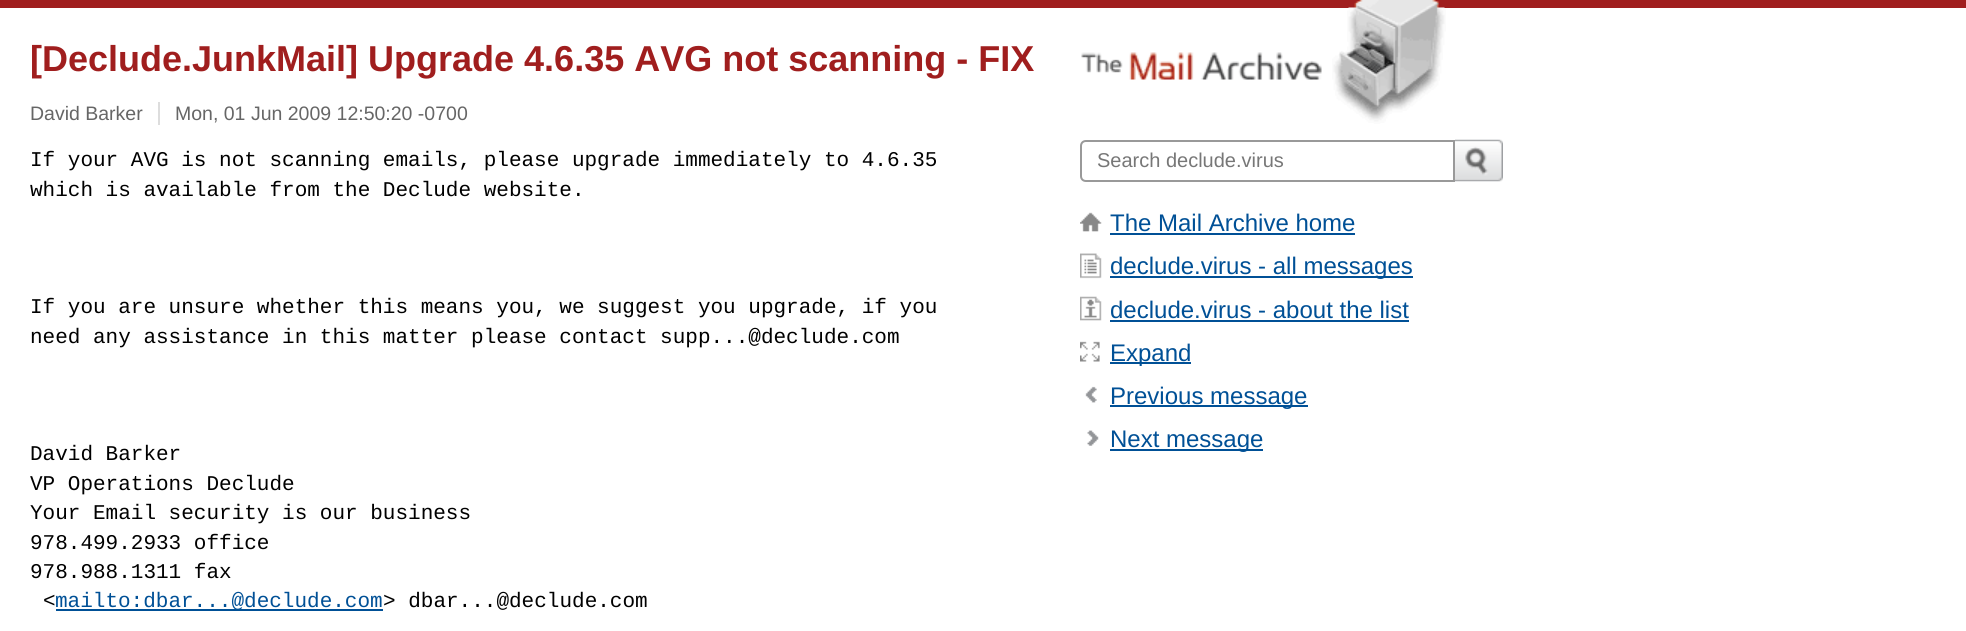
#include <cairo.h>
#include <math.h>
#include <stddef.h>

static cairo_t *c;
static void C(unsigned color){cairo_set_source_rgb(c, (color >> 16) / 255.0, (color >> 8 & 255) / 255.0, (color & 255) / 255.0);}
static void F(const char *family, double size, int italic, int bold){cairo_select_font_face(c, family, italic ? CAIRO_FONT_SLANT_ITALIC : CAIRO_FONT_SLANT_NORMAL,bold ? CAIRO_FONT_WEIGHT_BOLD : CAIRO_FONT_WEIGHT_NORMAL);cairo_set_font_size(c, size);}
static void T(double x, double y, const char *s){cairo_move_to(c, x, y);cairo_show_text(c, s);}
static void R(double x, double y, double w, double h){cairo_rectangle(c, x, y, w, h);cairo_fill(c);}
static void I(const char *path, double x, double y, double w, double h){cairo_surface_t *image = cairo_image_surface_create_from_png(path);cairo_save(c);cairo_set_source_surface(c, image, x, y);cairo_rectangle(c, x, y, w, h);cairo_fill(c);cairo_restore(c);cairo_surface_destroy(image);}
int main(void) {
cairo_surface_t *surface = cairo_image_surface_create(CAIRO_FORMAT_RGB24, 1966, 631);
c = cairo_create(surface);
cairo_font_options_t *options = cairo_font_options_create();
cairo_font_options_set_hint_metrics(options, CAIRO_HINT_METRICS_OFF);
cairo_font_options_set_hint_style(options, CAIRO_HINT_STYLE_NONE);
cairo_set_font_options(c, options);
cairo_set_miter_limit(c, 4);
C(0xffffff);
cairo_paint(c);
C(0xa01e1e);
R(0,0,1966,8);
F("Liberation Sans",36,0,1);
T(30,71,"[Declude.JunkMail] Upgrade 4.6.35 AVG not scanning - FIX");
F("Liberation Sans",19.5,0,0);
C(0x666666);
T(30,120,"David Barker");
C(0xdddddd);
R(158,102,2,23);
C(0x666666);
T(175,120,"Mon, 01 Jun 2009 12:50:20 -0700");
F("Liberation Mono",21,0,0);
C(0x000000);
T(30,166,"If your AVG is not scanning emails, please upgrade immediately to 4.6.35");
T(30,196,"which is available from the Declude website.");
T(30,313,"If you are unsure whether this means you, we suggest you upgrade, if you");
T(30,343,"need any assistance in this matter please contact supp...@declude.com");
T(30,460,"David Barker");
T(30,490,"VP Operations Declude");
T(30,519,"Your Email security is our business");
T(30,549,"978.499.2933 office");
T(30,578,"978.988.1311 fax");
T(43,607,"<");
C(0x005096);
R(56,609,327,2);
T(55,607,"mailto:dbar...@declude.com");
C(0x000000);
T(383,607,"> dbar...@declude.com");
I("1.png",1081,0,365,124);
cairo_new_path(c);
cairo_move_to(c,1086,141);
cairo_line_to(c,1454,141);
cairo_line_to(c,1454,181);
cairo_line_to(c,1086,181);
cairo_curve_to(c,1083,181,1081,179,1081,176);
cairo_line_to(c,1081,146);
cairo_curve_to(c,1081,143,1083,141,1086,141);
cairo_close_path(c);
C(0x999999);
cairo_stroke(c);
F("Liberation Sans",20,0,0);
C(0x777777);
T(1097,167,"Search declude.virus");
I("2.png",1455,139,48,43);
I("3.png",1080,212,22,20);
F("Liberation Sans",24,0,0);
C(0x005096);
T(1110,231,"The Mail Archive home");
R(1110,233,245,2);
I("4.png",1080,253,22,26);
R(1110,276,303,2);
T(1110,274,"declude.virus - all messages");
I("5.png",1080,296,22,25);
T(1110,318,"declude.virus - about the list");
R(1110,320,299,2);
I("6.png",1080,341,20,21);
R(1110,362,81,2);
T(1110,361,"Expand");
I("7.png",1085,386,12,17);
R(1110,405,198,2);
T(1110,404,"Previous message");
I("8.png",1087,430,12,16);
R(1110,449,153,2);
T(1110,447,"Next message");
cairo_surface_write_to_png(surface, "o.png");
cairo_font_options_destroy(options);
cairo_destroy(c);
cairo_surface_destroy(surface);
return 0;
}
